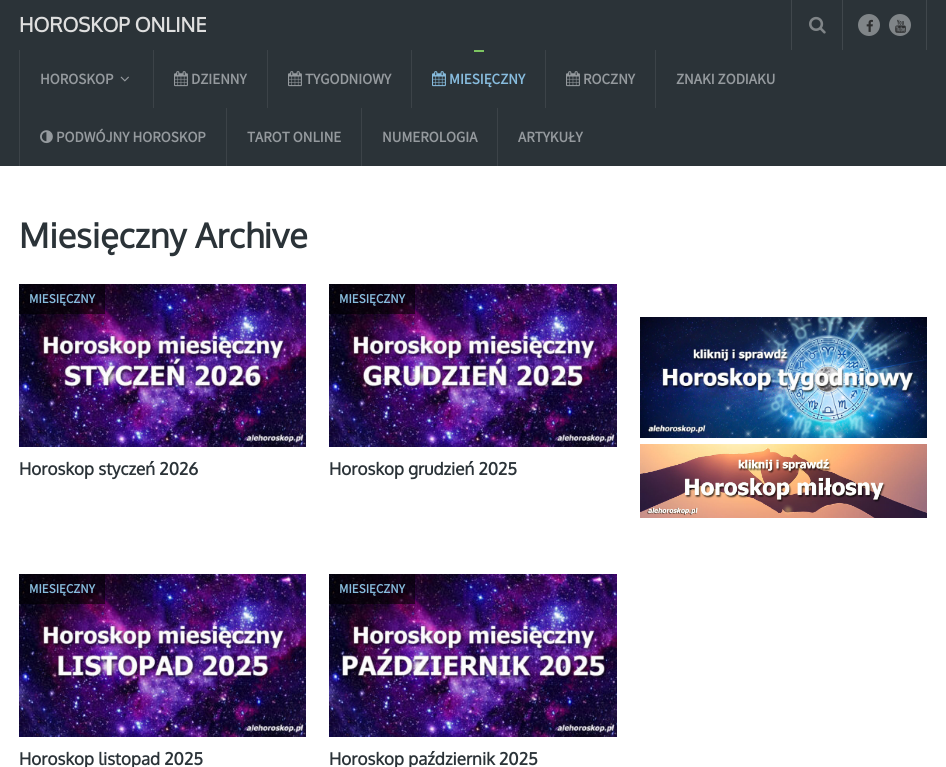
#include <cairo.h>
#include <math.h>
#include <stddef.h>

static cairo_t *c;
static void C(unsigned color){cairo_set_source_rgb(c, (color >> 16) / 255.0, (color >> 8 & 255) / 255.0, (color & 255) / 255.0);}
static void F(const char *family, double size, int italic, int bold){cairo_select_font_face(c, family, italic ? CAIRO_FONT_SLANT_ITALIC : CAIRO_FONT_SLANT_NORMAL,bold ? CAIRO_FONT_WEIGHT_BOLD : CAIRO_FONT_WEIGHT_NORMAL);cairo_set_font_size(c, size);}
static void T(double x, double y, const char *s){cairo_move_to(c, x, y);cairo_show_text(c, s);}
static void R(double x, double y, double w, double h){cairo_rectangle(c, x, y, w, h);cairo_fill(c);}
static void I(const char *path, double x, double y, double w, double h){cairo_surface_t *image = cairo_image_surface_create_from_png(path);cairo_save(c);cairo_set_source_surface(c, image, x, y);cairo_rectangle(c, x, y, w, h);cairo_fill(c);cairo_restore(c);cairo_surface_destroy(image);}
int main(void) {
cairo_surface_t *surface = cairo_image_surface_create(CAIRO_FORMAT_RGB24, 946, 767);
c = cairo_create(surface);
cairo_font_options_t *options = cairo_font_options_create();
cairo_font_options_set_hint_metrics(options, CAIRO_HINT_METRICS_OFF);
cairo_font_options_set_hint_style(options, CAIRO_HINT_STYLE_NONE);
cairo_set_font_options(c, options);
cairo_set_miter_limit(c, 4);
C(0xffffff);
cairo_paint(c);
C(0x2b3338);
R(0,0,946,166);
F("Oxygen",20,0,1);
C(0xdfdfdf);
T(19,32,"HOROSKOP ONLINE");
C(0x40474c);
R(791,0,1,50);
I("1.png",809,16,17,18);
R(926,0,1,50);
R(842,0,1,50);
C(0x808588);
cairo_arc(c,869,25,11,0,2 * M_PI);
cairo_fill(c);
I("2.png",866,19,7,13);
cairo_arc(c,900,25,11,0,2 * M_PI);
cairo_fill(c);
I("3.png",895,19,11,14);
C(0x3c4348);
R(19,50,1,116);
F("Source Sans Pro",15,0,1);
C(0x959a9e);
T(40,84,"HOROSKOP");
I("4.png",120,76,9,6);
C(0x3c4348);
R(153,50,1,58);
I("5.png",174,71,14,16);
C(0x959a9e);
T(191,84,"DZIENNY");
C(0x3c4348);
R(267,50,1,58);
I("5.png",288,71,14,16);
C(0x959a9e);
T(305,84,"TYGODNIOWY");
C(0x3c4348);
R(411,50,1,58);
C(0x7dc561);
R(474,50,10,2);
I("6.png",432,71,14,16);
C(0x87bcde);
T(449,84,"MIESIĘCZNY");
C(0x3c4348);
R(545,50,1,58);
I("5.png",566,71,14,16);
C(0x959a9e);
T(583,84,"ROCZNY");
C(0x3c4348);
R(655,50,1,58);
C(0x959a9e);
T(676,84,"ZNAKI ZODIAKU");
I("7.png",40,130,13,14);
T(56,142,"PODWÓJNY HOROSKOP");
C(0x3c4348);
R(226,108,1,58);
C(0x959a9e);
T(247,142,"TAROT ONLINE");
C(0x3c4348);
R(361,108,1,58);
C(0x959a9e);
T(382,142,"NUMEROLOGIA");
C(0x3c4348);
R(497,108,1,58);
C(0x959a9e);
T(518,142,"ARTYKUŁY");
F("Oxygen",34,0,1);
C(0x2b3338);
T(19,248,"Miesięczny Archive");
I("8.png",19,284,287,163);
cairo_set_source_rgba(c,0,0,0,0.6);
R(19,284,86,30);
F("Source Sans Pro",13,0,1);
C(0x87bcde);
T(29,303,"MIESIĘCZNY");
F("Oxygen",17,0,1);
C(0x2b3338);
T(19,475,"Horoskop styczeń 2026");
I("9.png",329,284,288,163);
cairo_set_source_rgba(c,0,0,0,0.6);
R(329,284,86,30);
F("Source Sans Pro",13,0,1);
C(0x87bcde);
T(339,303,"MIESIĘCZNY");
F("Oxygen",17,0,1);
C(0x2b3338);
T(329,475,"Horoskop grudzień 2025");
I("10.png",19,574,287,163);
cairo_set_source_rgba(c,0,0,0,0.6);
R(19,574,86,30);
F("Source Sans Pro",13,0,1);
C(0x87bcde);
T(29,593,"MIESIĘCZNY");
F("Oxygen",17,0,1);
C(0x2b3338);
T(19,765,"Horoskop listopad 2025");
I("11.png",329,574,288,163);
cairo_set_source_rgba(c,0,0,0,0.6);
R(329,574,86,30);
F("Source Sans Pro",13,0,1);
C(0x87bcde);
T(339,593,"MIESIĘCZNY");
F("Oxygen",17,0,1);
C(0x2b3338);
T(329,765,"Horoskop październik 2025");
I("12.png",640,317,287,121);
I("13.png",640,444,287,74);
cairo_surface_write_to_png(surface, "o.png");
cairo_font_options_destroy(options);
cairo_destroy(c);
cairo_surface_destroy(surface);
return 0;
}
